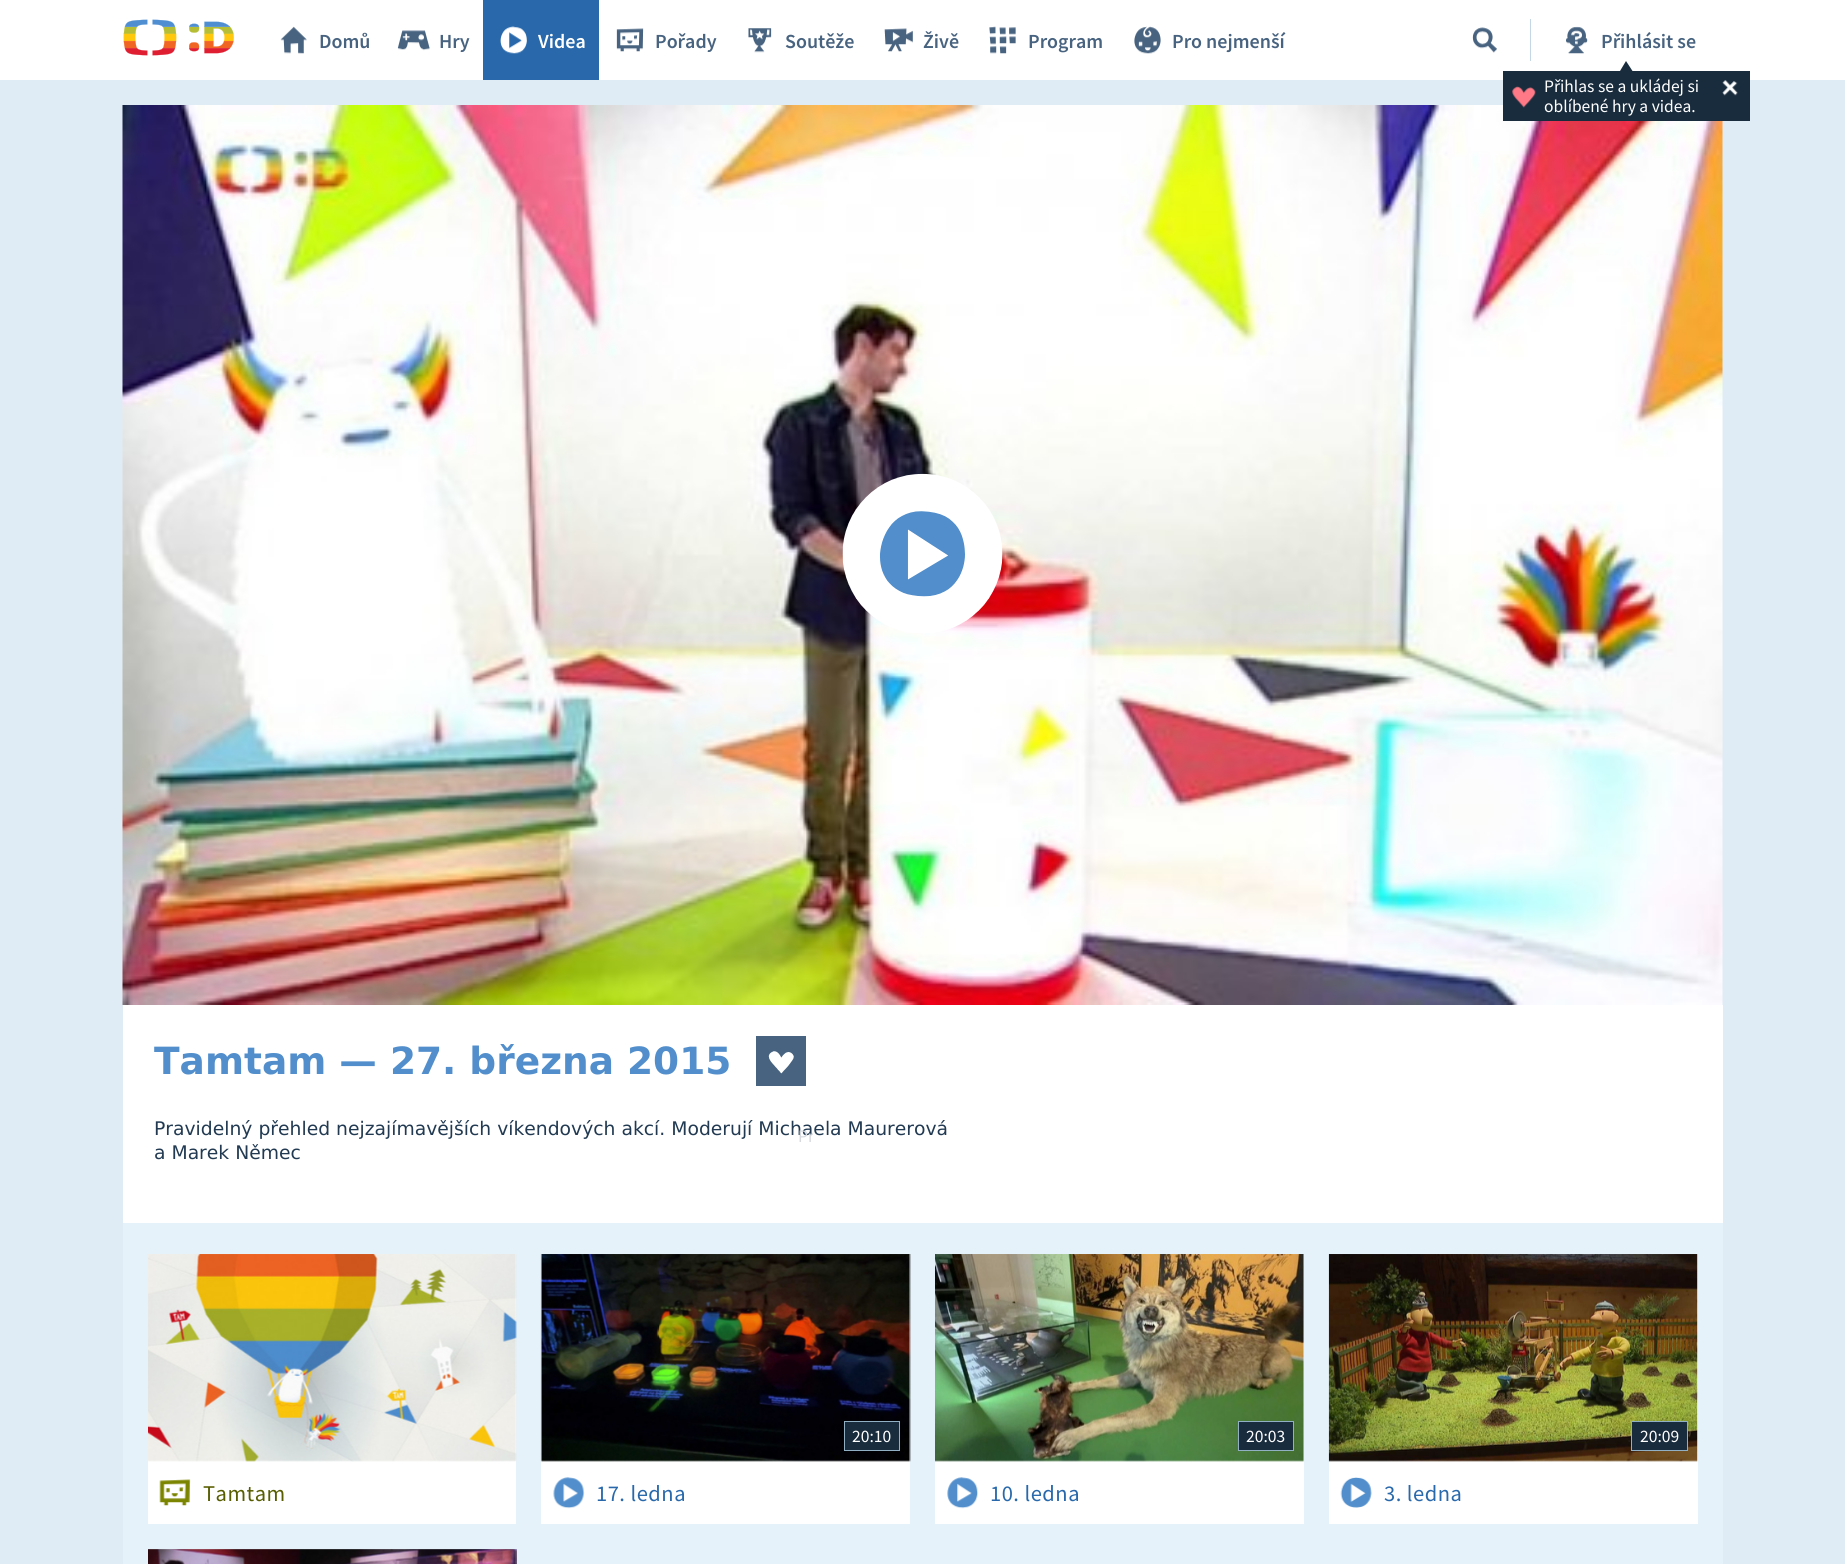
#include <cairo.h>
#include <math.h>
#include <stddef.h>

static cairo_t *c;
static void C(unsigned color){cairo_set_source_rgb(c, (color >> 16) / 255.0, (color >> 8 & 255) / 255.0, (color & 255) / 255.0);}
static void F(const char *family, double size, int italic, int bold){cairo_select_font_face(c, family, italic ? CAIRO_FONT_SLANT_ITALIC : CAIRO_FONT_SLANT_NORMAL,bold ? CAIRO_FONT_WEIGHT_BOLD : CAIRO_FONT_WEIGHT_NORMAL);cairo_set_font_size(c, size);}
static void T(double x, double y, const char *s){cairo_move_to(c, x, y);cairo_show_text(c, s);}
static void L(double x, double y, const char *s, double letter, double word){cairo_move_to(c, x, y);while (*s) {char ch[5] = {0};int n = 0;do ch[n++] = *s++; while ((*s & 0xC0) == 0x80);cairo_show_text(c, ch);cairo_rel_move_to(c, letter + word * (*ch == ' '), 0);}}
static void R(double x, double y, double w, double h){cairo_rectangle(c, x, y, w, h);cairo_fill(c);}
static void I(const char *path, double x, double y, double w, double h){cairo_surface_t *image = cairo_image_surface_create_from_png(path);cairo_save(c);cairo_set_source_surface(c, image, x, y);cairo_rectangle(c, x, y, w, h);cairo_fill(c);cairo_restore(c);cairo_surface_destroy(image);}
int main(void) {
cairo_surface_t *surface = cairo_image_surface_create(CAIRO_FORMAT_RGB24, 1845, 1564);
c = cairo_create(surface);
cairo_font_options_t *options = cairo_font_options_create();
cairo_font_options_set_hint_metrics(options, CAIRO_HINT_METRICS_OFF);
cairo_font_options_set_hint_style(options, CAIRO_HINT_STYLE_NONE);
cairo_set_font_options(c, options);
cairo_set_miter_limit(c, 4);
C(0xe0ecf5);
cairo_paint(c);
C(0xffffff);
R(0,0,1845,80);
I("1.png",123,19,111,37);
I("2.png",280,26,27,28);
F("Source Sans Pro SemiBold",20,0,0);
C(0x486380);
T(319,48,"Domů");
I("3.png",397,30,33,21);
T(439,48,"Hry");
C(0x2969ab);
R(483,0,116,80);
I("4.png",500,26,27,28);
C(0xffffff);
T(538,48,"Videa");
I("5.png",616,28,28,24);
C(0x486380);
T(655,48,"Pořady");
I("6.png",748,28,24,25);
T(785,48,"Soutěže");
I("7.png",884,28,29,24);
T(923,48,"Živě");
I("8.png",989,26,27,28);
T(1028,48,"Program");
I("9.png",1134,26,27,28);
T(1172,48,"Pro nejmenší");
I("10.png",1472,27,25,26);
C(0xc3d7e6);
R(1530,19,1,42);
I("11.png",1566,26,22,28);
C(0x486380);
T(1601,48,"Přihlásit se");
I("14.png",122,105,1601,900);
C(0x192c3d);
R(1503,71,247,50);
cairo_new_path(c);
cairo_move_to(c,1632.5,71);
cairo_line_to(c,1620,71);
cairo_line_to(c,1626,61);
cairo_close_path(c);
cairo_fill(c);
I("12.png",1512,86,24,22);
F("Source Sans Pro",17.5,0,0);
C(0xffffff);
T(1544,92,"Přihlas se a ukládej si");
T(1544,112,"oblíbené hry a videa.");
I("13.png",1722,80,16,16);
I("15.png",842,473,161,160);
R(123,1005,1600,218);
F("DejaVu Sans",37.5,0,1);
C(0x518ecb);
T(154,1074,"Tamtam — 27. března 2015");
C(0x486380);
R(756,1036,50,50);
I("16.png",768,1051,26,23);
F("DejaVu Sans",18.75,0,0);
C(0x213a52);
T(154,1135,"Pravidelný přehled nejzajímavějších víkendových akcí. Moderují Michaela Maurerová");
cairo_save(c);
cairo_rectangle(c,750,1101,63,150);
cairo_clip(c);
F("Source Sans Pro",17.5,0,0);
C(0xd5d9de);
T(798,1142,"Pr");
cairo_restore(c);
T(154,1159,"a Marek Němec");
C(0xe6f2fa);
R(123,1223,1600,341);
C(0xffffff);
R(148,1254,368,270);
I("17.png",148,1254,369,208);
I("18.png",159,1479,32,27);
F("Source Sans Pro",22.5,0,0);
C(0x575d00);
L(203,1501,"Tamtam",.5,0);
C(0xffffff);
R(541,1254,369,270);
I("19.png",540,1254,371,208);
C(0x192c3d);
cairo_rectangle(c,844.5,1421.5,55,29);
cairo_fill_preserve(c);
C(0x91b0c4);
cairo_set_line_width(c,1);
cairo_stroke(c);
F("Source Sans Pro",17.5,0,0);
C(0xffffff);
T(852,1442,"20:10");
I("20.png",553,1477,32,32);
F("Source Sans Pro",22.5,0,0);
C(0x2969ab);
L(596,1501,"17. ledna",.5,0);
C(0xffffff);
R(935,1254,369,270);
I("21.png",935,1254,369,208);
C(0x192c3d);
cairo_rectangle(c,1238.5,1421.5,55,29);
cairo_fill_preserve(c);
C(0x91b0c4);
cairo_stroke(c);
F("Source Sans Pro",17.5,0,0);
C(0xffffff);
T(1246,1442,"20:03");
I("22.png",947,1477,31,32);
F("Source Sans Pro",22.5,0,0);
C(0x2969ab);
L(990,1501,"10. ledna",.5,0);
C(0xffffff);
R(1329,1254,369,270);
I("23.png",1328,1254,370,208);
C(0x192c3d);
cairo_rectangle(c,1631.5,1421.5,56,29);
cairo_fill_preserve(c);
C(0x91b0c4);
cairo_stroke(c);
F("Source Sans Pro",17.5,0,0);
C(0xffffff);
T(1640,1442,"20:09");
I("24.png",1340,1477,32,31);
F("Source Sans Pro",22.5,0,0);
C(0x2969ab);
L(1384,1501,"3. ledna",.5,0);
I("25.png",148,1549,369,15);
cairo_surface_write_to_png(surface, "o.png");
cairo_font_options_destroy(options);
cairo_destroy(c);
cairo_surface_destroy(surface);
return 0;
}
